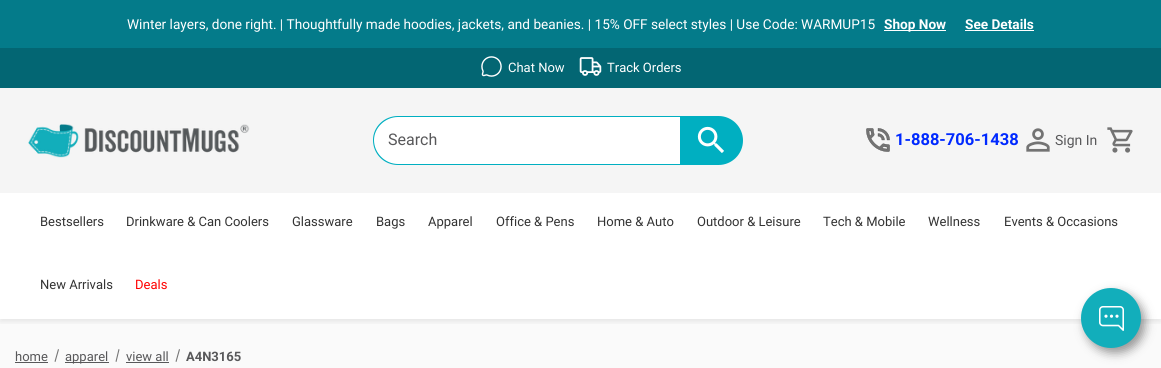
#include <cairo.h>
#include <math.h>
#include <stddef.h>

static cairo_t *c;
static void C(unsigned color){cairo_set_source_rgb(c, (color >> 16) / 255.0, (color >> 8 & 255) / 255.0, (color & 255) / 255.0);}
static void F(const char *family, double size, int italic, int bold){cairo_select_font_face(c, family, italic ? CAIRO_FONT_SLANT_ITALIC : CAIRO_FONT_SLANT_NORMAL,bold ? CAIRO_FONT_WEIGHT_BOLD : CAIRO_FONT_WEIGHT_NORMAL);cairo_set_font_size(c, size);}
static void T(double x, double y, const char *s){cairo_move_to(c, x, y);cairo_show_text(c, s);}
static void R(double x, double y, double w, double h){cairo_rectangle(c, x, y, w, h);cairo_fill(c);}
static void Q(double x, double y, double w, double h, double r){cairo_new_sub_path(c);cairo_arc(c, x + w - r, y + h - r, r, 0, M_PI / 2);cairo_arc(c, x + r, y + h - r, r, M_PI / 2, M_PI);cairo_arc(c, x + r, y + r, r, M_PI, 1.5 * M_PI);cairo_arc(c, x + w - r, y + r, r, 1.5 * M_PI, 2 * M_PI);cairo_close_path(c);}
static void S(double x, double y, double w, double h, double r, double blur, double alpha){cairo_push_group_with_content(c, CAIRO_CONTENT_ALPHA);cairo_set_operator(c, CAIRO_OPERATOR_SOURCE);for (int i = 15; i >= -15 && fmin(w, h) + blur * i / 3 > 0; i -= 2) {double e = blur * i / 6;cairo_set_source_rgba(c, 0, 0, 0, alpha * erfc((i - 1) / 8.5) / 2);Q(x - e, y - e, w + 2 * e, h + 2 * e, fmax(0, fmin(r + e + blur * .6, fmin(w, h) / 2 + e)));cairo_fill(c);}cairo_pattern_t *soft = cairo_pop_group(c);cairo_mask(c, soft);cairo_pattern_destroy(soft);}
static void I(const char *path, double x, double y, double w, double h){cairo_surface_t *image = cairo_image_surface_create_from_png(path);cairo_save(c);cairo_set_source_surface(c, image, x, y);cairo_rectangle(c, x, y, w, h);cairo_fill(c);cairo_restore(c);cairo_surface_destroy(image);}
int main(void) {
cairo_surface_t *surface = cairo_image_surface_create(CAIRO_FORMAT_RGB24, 1161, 368);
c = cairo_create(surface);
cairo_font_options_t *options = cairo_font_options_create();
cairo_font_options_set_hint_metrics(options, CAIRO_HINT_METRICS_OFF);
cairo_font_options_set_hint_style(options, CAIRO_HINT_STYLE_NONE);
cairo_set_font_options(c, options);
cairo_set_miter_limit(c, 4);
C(0xffffff);
cairo_paint(c);
C(0x036673);
R(0,48,1161,40);
C(0x047b8a);
R(0,0,1161,48);
F("Roboto",13.63,0,0);
C(0xffffff);
T(127,29,"Winter layers, done right. | Thoughtfully made hoodies, jackets, and beanies. | 15% OFF select styles | Use Code: WARMUP15");
R(884,30,62,1);
F("Roboto",13.63,0,1);
T(884,29,"Shop Now");
T(965,29,"See Details");
R(965,30,69,1);
I("1.png",481,56,21,21);
F("Roboto",13,0,0);
T(508,72,"Chat Now");
I("2.png",579,57,23,19);
T(607,72,"Track Orders");
C(0xf5f5f5);
R(0,88,1161,105);
I("3.png",28,124,222,34);
C(0xffffff);
cairo_new_path(c);
cairo_move_to(c,397.5,117);
cairo_line_to(c,680,117);
cairo_line_to(c,680,164);
cairo_line_to(c,397.5,164);
cairo_curve_to(c,384.5,164,374,153.5,374,140.5);
cairo_curve_to(c,374,127.5,384.5,117,397.5,117);
cairo_close_path(c);
cairo_fill(c);
C(0x00afc1);
cairo_set_fill_rule(c,CAIRO_FILL_RULE_EVEN_ODD);
cairo_new_path(c);
cairo_move_to(c,398,116);
cairo_line_to(c,680,116);
cairo_line_to(c,680,165);
cairo_line_to(c,398,165);
cairo_curve_to(c,384,165,373,154,373,140);
cairo_curve_to(c,373,127,384,116,398,116);
cairo_close_path(c);
cairo_move_to(c,398,117);
cairo_line_to(c,680,117);
cairo_line_to(c,680,164);
cairo_line_to(c,398,164);
cairo_curve_to(c,385,164,374,153,374,140);
cairo_curve_to(c,374,128,385,117,398,117);
cairo_close_path(c);
cairo_fill(c);
F("Roboto",16,0,0);
C(0x58585a);
T(388,145,"Search");
C(0x00afc1);
cairo_new_path(c);
cairo_move_to(c,680,116);
cairo_line_to(c,718.5,116);
cairo_curve_to(c,732,116,743,127,743,140.5);
cairo_curve_to(c,743,154,732,165,718.5,165);
cairo_line_to(c,680,165);
cairo_close_path(c);
cairo_fill(c);
I("4.png",697,126,27,27);
I("5.png",866,128,24,24);
F("Roboto",16.5,0,1);
C(0x0029ff);
T(895,145,"1-888-706-1438");
I("6.png",1026,128,24,24);
F("Roboto",14,0,0);
C(0x58585a);
T(1055,145,"Sign In");
I("7.png",1107,127,26,26);
C(0xfafafa);
R(0,319,1161,49);
cairo_save(c);
cairo_set_fill_rule(c,CAIRO_FILL_RULE_WINDING);
cairo_rectangle(c,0,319,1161,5);
cairo_clip(c);
C(0x000000);
S(0,196,1161,126,0,3,.08);
cairo_restore(c);
F("Roboto",13,0,0);
C(0x333333);
T(40,226,"Bestsellers");
T(126,226,"Drinkware & Can Coolers");
T(292,226,"Glassware");
T(376,226,"Bags");
T(428,226,"Apparel");
T(496,226,"Office & Pens");
T(597,226,"Home & Auto");
T(697,226,"Outdoor & Leisure");
T(823,226,"Tech & Mobile");
T(928,226,"Wellness");
T(1004,226,"Events & Occasions");
T(40,289,"New Arrivals");
C(0xff0000);
T(135,289,"Deals");
C(0x58585a);
T(15,361,"home");
R(15,362,33,1);
C(0x757575);
cairo_set_fill_rule(c,CAIRO_FILL_RULE_WINDING);
cairo_new_path(c);
cairo_move_to(c,58,349);
cairo_line_to(c,59,349.5);
cairo_line_to(c,55.5,362);
cairo_line_to(c,54.5,361.5);
cairo_close_path(c);
cairo_fill(c);
C(0x58585a);
R(65,362,44,1);
T(65,361,"apparel");
C(0x757575);
cairo_new_path(c);
cairo_move_to(c,118.5,349);
cairo_line_to(c,119.5,349.5);
cairo_line_to(c,116.5,362);
cairo_line_to(c,115.5,361.5);
cairo_close_path(c);
cairo_fill(c);
C(0x58585a);
T(126,361,"view all");
R(126,362,43,1);
C(0x757575);
cairo_new_path(c);
cairo_move_to(c,179,349);
cairo_line_to(c,180,349.5);
cairo_line_to(c,176.5,362);
cairo_line_to(c,175.5,361.5);
cairo_close_path(c);
cairo_fill(c);
F("Roboto",13,0,1);
C(0x58585a);
T(186,361,"A4N3165");
C(0x000000);
S(1085,293,60,60,30,5,.4);
C(0x12aebb);
cairo_arc(c,1111,318,30,0,2 * M_PI);
cairo_fill(c);
I("8.png",1099,306,25,25);
cairo_surface_write_to_png(surface, "o.png");
cairo_font_options_destroy(options);
cairo_destroy(c);
cairo_surface_destroy(surface);
return 0;
}
